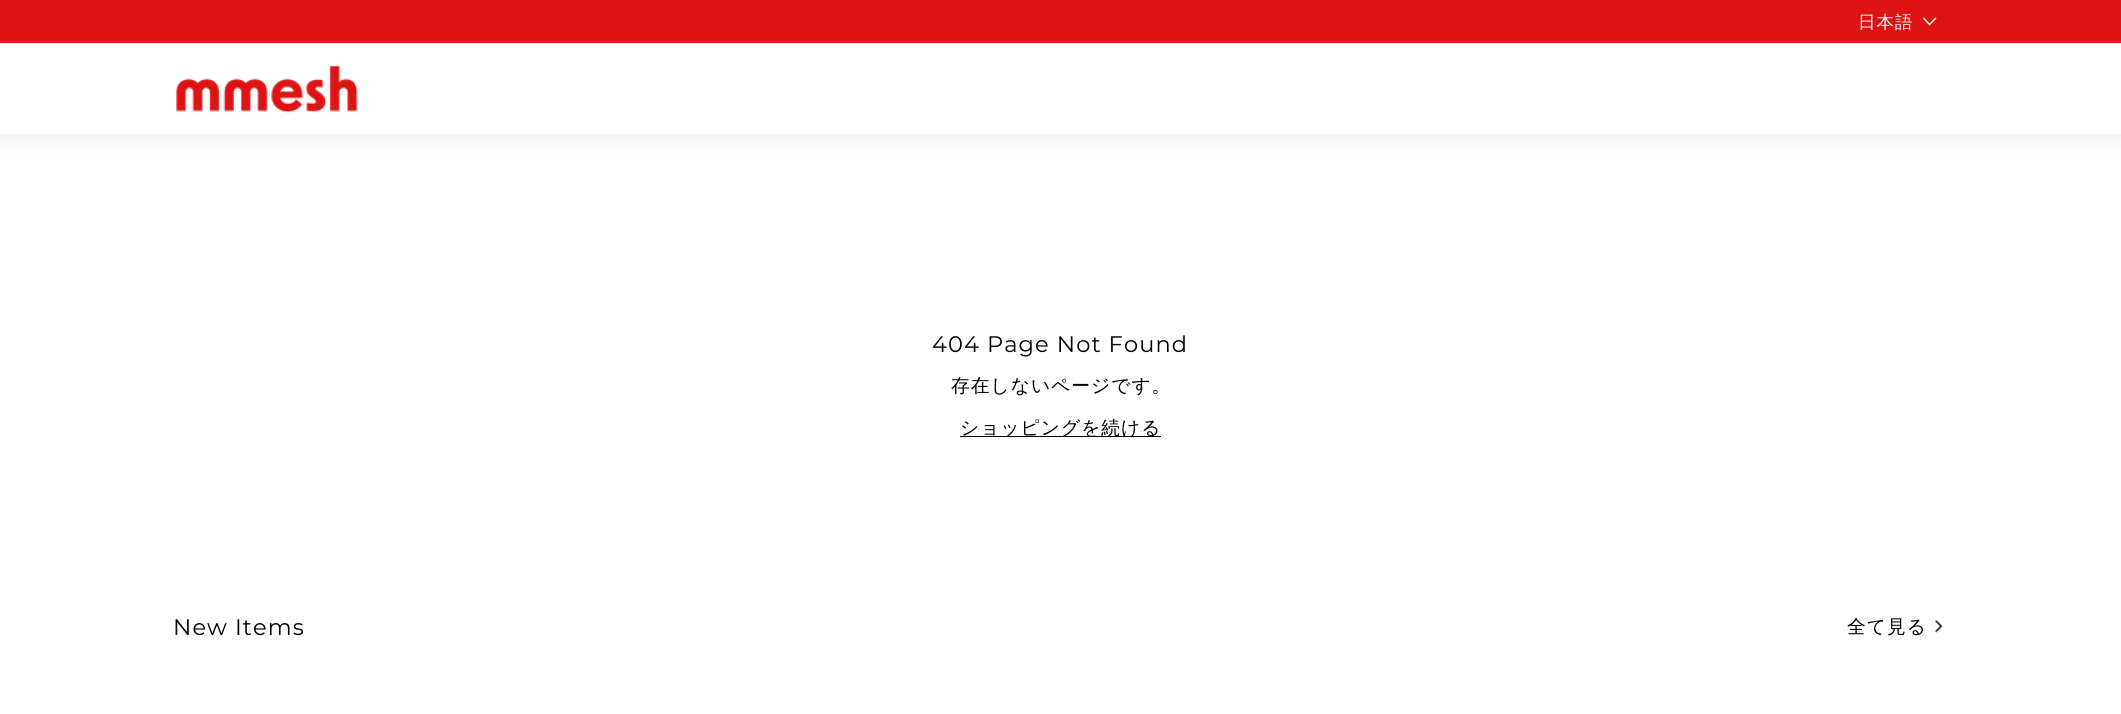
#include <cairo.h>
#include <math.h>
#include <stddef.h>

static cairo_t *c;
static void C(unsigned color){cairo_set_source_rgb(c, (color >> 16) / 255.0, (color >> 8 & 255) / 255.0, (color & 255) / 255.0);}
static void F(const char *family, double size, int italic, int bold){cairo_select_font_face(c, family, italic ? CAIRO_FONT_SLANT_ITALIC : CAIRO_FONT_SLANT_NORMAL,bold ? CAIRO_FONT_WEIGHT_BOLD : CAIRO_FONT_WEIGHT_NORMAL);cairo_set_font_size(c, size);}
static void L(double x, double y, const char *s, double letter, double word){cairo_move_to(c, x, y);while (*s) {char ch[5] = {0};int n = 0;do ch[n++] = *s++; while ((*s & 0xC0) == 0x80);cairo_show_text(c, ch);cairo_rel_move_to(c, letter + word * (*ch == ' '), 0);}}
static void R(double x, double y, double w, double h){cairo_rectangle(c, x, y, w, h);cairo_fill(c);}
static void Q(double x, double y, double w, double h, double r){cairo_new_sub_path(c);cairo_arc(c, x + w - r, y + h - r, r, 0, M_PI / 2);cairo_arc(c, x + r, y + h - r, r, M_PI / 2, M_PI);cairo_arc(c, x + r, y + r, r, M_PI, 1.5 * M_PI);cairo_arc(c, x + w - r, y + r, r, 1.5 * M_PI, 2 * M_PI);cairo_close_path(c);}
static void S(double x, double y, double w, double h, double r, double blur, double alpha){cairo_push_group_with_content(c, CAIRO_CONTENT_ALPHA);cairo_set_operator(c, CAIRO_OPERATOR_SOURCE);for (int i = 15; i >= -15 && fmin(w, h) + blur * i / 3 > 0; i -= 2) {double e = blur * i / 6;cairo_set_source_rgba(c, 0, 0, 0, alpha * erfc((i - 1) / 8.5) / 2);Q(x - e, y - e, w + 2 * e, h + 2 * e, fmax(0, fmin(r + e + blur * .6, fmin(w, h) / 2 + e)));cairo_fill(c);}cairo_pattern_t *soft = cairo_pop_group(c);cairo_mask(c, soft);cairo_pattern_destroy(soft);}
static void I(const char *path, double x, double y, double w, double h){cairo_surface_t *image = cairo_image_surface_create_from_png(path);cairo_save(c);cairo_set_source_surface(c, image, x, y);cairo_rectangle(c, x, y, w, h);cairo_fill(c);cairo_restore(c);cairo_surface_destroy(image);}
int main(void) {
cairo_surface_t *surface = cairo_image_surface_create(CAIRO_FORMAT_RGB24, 2121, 714);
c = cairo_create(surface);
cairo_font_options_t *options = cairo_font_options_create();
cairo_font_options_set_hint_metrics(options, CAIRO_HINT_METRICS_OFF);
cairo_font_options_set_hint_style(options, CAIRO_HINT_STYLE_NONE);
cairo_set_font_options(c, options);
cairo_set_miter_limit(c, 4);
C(0xffffff);
cairo_paint(c);
C(0x000000);
S(0,43,2121,91,0,15.5,.1);
C(0xffffff);
R(0,43,2121,91);
I("1.png",176,65,182,48);
C(0xdd1212);
R(0,0,2121,43);
F("WenQuanYi Zen Hei Medium",17.5,0,0);
C(0xfafafa);
L(1858,28,"日本語",1,0);
cairo_new_path(c);
cairo_move_to(c,1923.5,18);
cairo_line_to(c,1929.5,24.5);
cairo_line_to(c,1936,18);
cairo_set_line_width(c,1.5);
cairo_stroke(c);
C(0xe13535);
R(0,41,2121,1);
F("Montserrat",22.5,0,0);
C(0x000000);
L(932,352,"404 Page Not Found",1.1,0);
F("WenQuanYi Zen Hei Medium",18.75,0,0);
L(951,392,"存在しないページです。",1,0);
R(960,436,201,1);
L(960,434,"ショッピングを続ける",1,0);
F("Montserrat",22.5,0,0);
L(173,635,"New Items",1.1,0);
F("WenQuanYi Zen Hei Medium",18.75,0,0);
L(1847,633,"全て見る",1,0);
I("2.png",1935,620,8,13);
cairo_surface_write_to_png(surface, "o.png");
cairo_font_options_destroy(options);
cairo_destroy(c);
cairo_surface_destroy(surface);
return 0;
}
